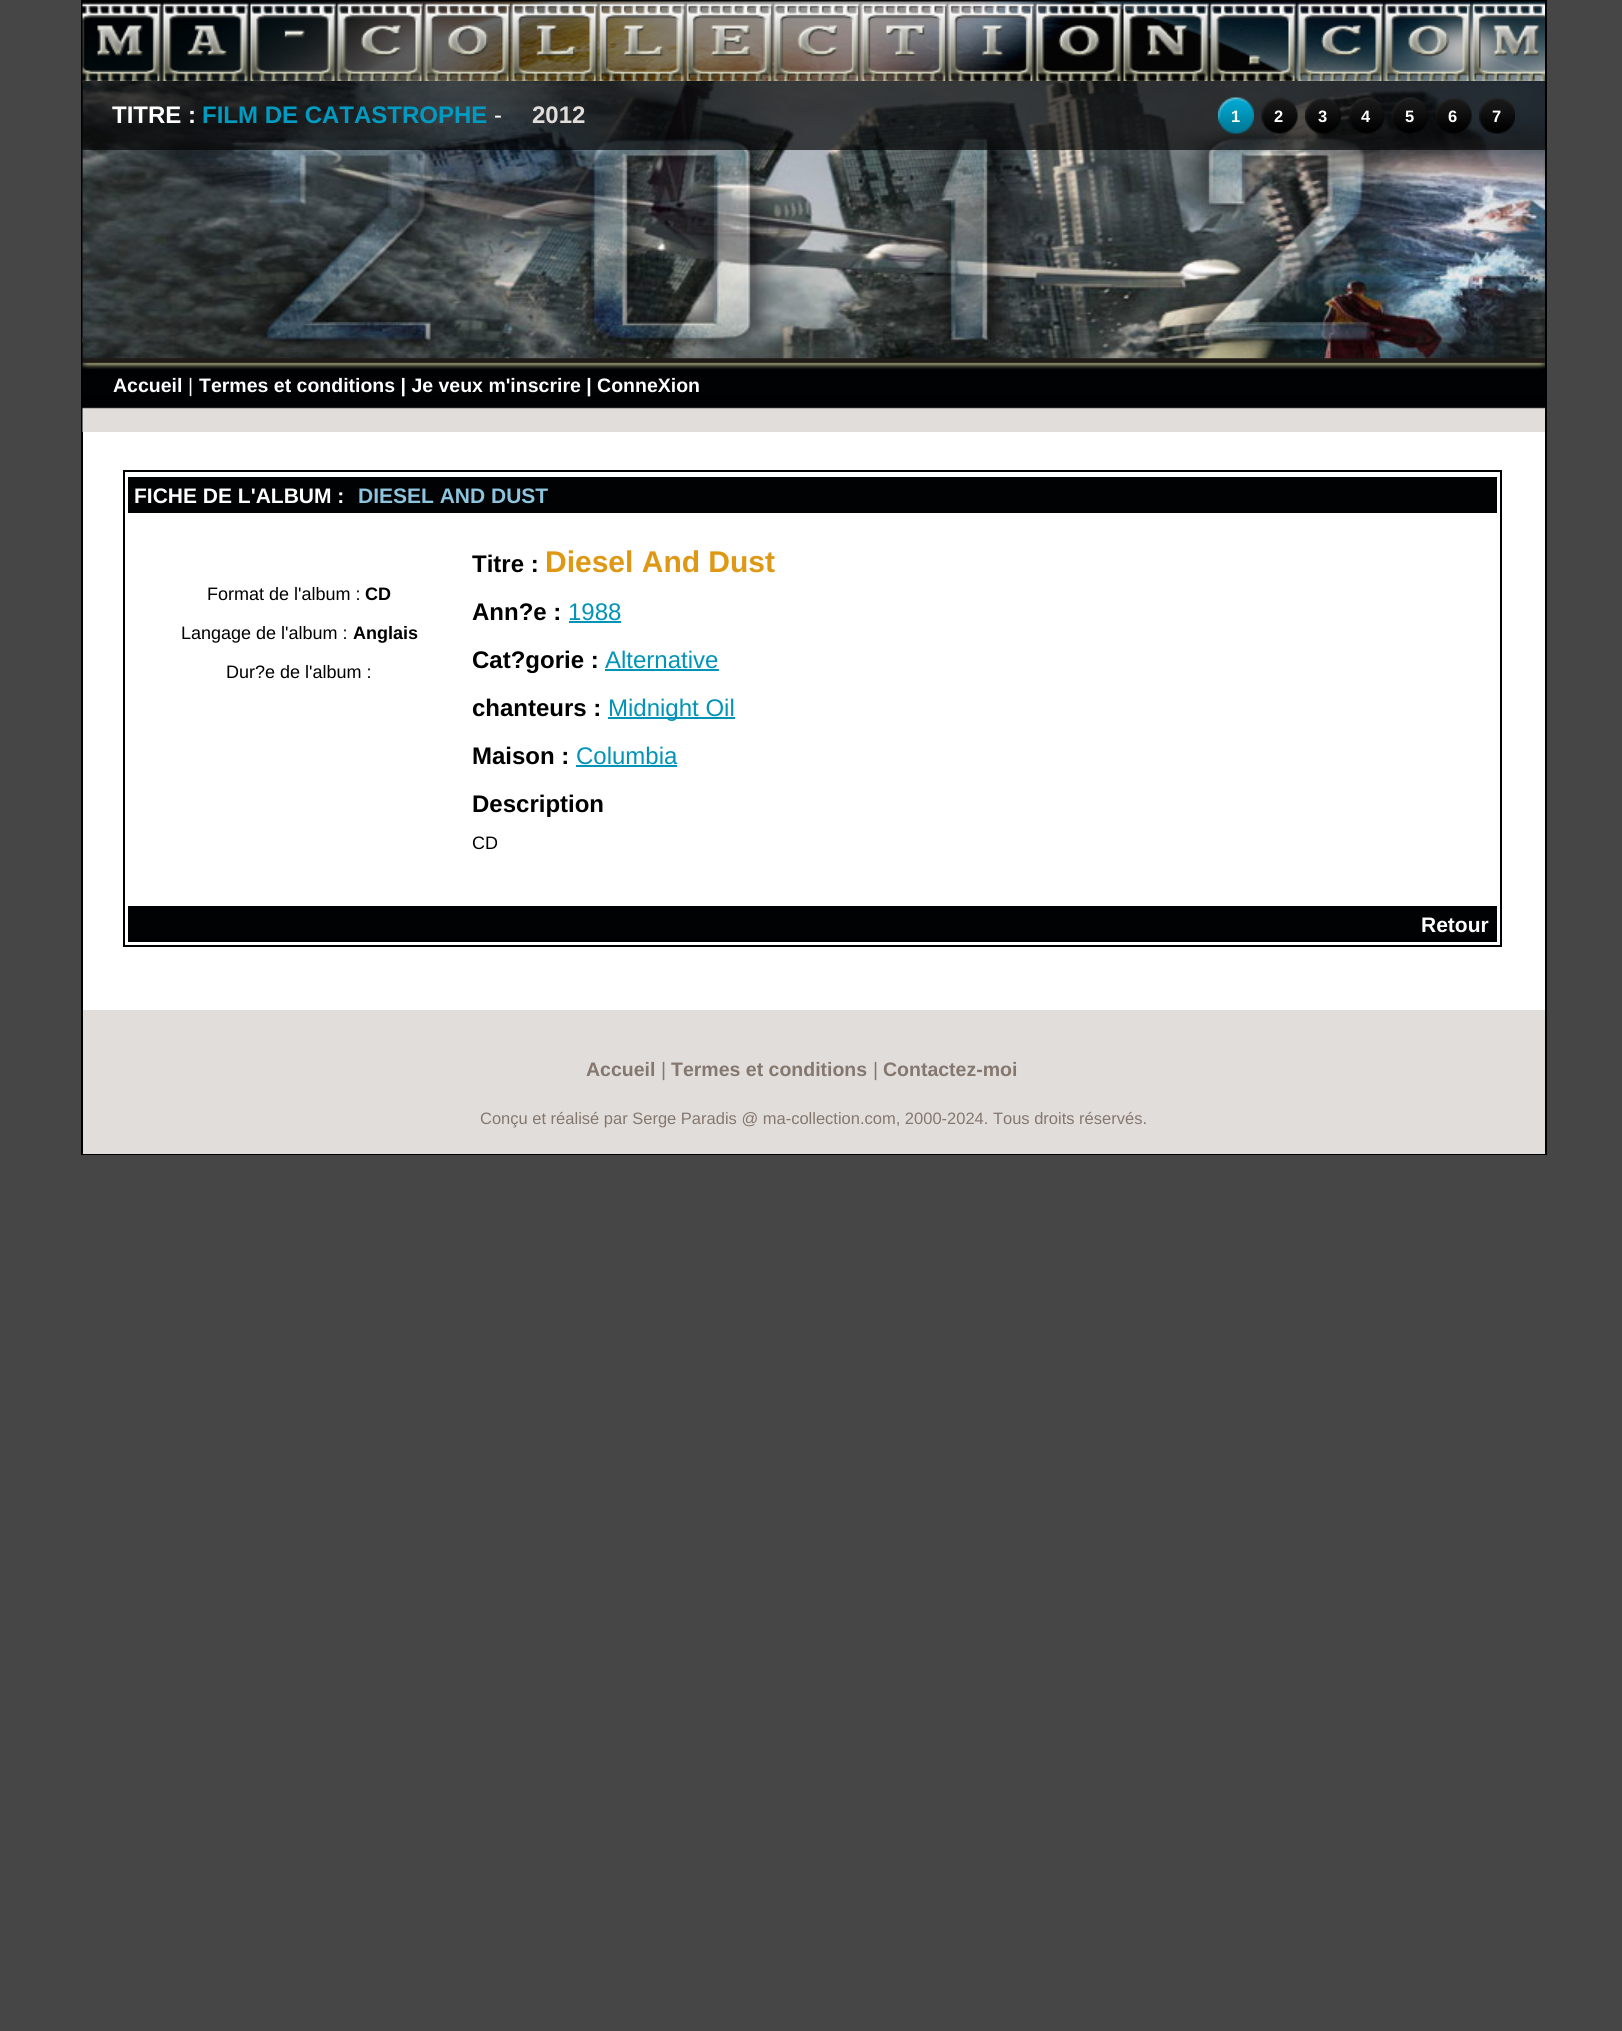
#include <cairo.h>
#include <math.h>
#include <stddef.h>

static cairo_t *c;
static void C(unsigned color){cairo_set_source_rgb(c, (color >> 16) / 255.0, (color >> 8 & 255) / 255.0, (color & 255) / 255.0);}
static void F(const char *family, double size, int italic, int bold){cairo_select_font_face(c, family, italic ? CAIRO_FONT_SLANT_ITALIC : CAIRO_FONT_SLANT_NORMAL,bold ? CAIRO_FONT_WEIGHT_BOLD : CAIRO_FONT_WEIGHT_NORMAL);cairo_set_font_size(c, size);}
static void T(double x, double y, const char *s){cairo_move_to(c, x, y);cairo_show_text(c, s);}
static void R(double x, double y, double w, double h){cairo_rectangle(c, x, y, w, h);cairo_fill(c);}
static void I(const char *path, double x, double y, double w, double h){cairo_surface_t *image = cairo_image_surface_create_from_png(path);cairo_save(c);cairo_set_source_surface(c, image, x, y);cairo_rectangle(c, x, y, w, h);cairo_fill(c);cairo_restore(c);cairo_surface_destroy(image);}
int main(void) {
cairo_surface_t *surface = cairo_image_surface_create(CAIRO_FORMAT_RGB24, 1622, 2031);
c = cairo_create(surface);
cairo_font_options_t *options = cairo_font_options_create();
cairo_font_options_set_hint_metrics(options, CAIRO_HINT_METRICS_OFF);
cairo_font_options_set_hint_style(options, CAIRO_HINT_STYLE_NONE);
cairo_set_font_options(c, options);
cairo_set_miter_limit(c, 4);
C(0x464646);
cairo_paint(c);
C(0xffffff);
R(83,432,1462,578);
cairo_rectangle(c,82,1,1464,1153);
C(0x000000);
cairo_stroke(c);
I("1.png",82,1,1463,431);
I("2.png",82,81,1463,278);
cairo_set_source_rgba(c,0,0,0,0.67);
R(82,81,1463,69);
F("Liberation Sans",24,0,1);
C(0xffffff);
T(112,123,"TITRE :");
C(0x019bc1);
T(202,123,"FILM DE CATASTROPHE");
F("Liberation Sans",24,0,0);
C(0xffffff);
T(494,123,"-");
F("Liberation Sans",24,0,1);
C(0xe1ddda);
T(532,123,"2012");
I("3.png",1218,97,36,37);
F("Liberation Sans",16.5,0,1);
C(0xffffff);
T(1231,122,"1");
I("4.png",1261,97,37,37);
T(1274,122,"2");
I("5.png",1305,98,36,36);
T(1318,122,"3");
I("6.png",1348,97,37,37);
T(1361,122,"4");
I("7.png",1392,97,36,37);
T(1405,122,"5");
I("8.png",1435,97,37,37);
T(1448,122,"6");
I("9.png",1479,97,36,37);
T(1492,122,"7");
F("Liberation Sans",19.5,0,1);
T(113,392,"Accueil");
F("Liberation Sans",19.5,0,0);
T(188,392,"|");
F("Liberation Sans",19.5,0,1);
T(199,392,"Termes et conditions | Je veux m'inscrire | ConneXion");
cairo_rectangle(c,124,471,1377,475);
C(0x000000);
cairo_stroke(c);
C(0x010204);
R(128,477,1369,36);
F("Liberation Sans",21,0,1);
C(0xffffff);
T(134,503,"FICHE DE L'ALBUM :");
C(0x8dc4de);
T(358,503,"DIESEL AND DUST");
F("Liberation Sans",18,0,0);
C(0x000000);
T(207,600,"Format de l'album :");
F("Liberation Sans",18,0,1);
T(365,600,"CD");
F("Liberation Sans",18,0,0);
T(181,639,"Langage de l'album :");
F("Liberation Sans",18,0,1);
T(353,639,"Anglais");
F("Liberation Sans",18,0,0);
T(226,678,"Dur?e de l'album :");
F("Liberation Sans",24,0,1);
T(472,572,"Titre :");
F("Liberation Sans",30,0,1);
C(0xde9814);
T(545,572,"Diesel And Dust");
F("Liberation Sans",24,0,1);
C(0x000000);
T(472,620,"Ann?e :");
F("Liberation Sans",24,0,0);
C(0x0193b8);
T(568,620,"1988");
R(569,621,52,2);
F("Liberation Sans",24,0,1);
C(0x000000);
T(472,668,"Cat?gorie :");
F("Liberation Sans",24,0,0);
C(0x0193b8);
T(605,668,"Alternative");
R(605,669,114,2);
F("Liberation Sans",24,0,1);
C(0x000000);
T(472,716,"chanteurs :");
C(0x0193b8);
R(608,717,127,2);
F("Liberation Sans",24,0,0);
T(608,716,"Midnight Oil");
F("Liberation Sans",24,0,1);
C(0x000000);
T(472,764,"Maison :");
F("Liberation Sans",24,0,0);
C(0x0193b8);
T(576,764,"Columbia");
R(576,765,101,2);
F("Liberation Sans",24,0,1);
C(0x000000);
T(472,812,"Description");
F("Liberation Sans",18,0,0);
T(472,849,"CD");
C(0x010204);
R(128,906,1369,36);
F("Liberation Sans",21,0,1);
C(0xffffff);
T(1421,932,"Retour");
C(0xe1ddda);
R(83,1010,1462,144);
F("Liberation Sans",19.5,0,1);
C(0x84776f);
T(586,1076,"Accueil");
F("Liberation Sans",19.5,0,0);
T(661,1076,"|");
F("Liberation Sans",19.5,0,1);
T(671,1076,"Termes et conditions");
F("Liberation Sans",19.5,0,0);
T(873,1076,"|");
F("Liberation Sans",19.5,0,1);
T(883,1076,"Contactez-moi");
F("Liberation Sans",16.5,0,0);
T(480,1124,"Conçu et réalisé par Serge Paradis @ ma-collection.com, 2000-2024. Tous droits réservés.");
cairo_surface_write_to_png(surface, "o.png");
cairo_font_options_destroy(options);
cairo_destroy(c);
cairo_surface_destroy(surface);
return 0;
}
